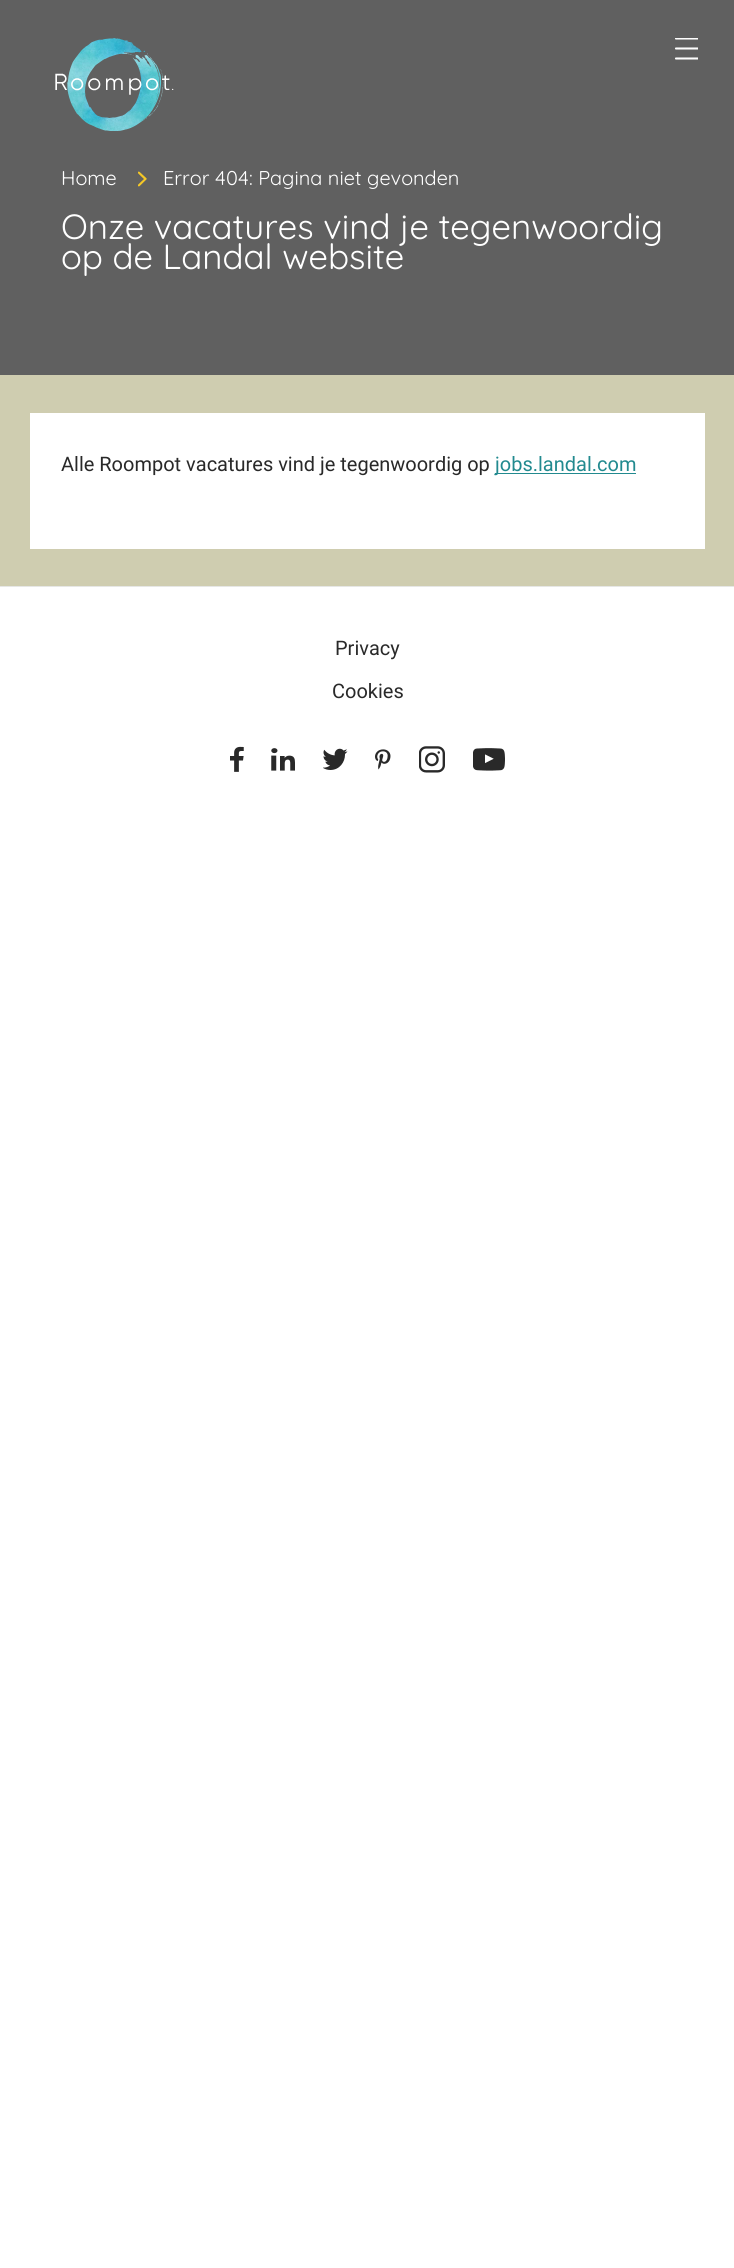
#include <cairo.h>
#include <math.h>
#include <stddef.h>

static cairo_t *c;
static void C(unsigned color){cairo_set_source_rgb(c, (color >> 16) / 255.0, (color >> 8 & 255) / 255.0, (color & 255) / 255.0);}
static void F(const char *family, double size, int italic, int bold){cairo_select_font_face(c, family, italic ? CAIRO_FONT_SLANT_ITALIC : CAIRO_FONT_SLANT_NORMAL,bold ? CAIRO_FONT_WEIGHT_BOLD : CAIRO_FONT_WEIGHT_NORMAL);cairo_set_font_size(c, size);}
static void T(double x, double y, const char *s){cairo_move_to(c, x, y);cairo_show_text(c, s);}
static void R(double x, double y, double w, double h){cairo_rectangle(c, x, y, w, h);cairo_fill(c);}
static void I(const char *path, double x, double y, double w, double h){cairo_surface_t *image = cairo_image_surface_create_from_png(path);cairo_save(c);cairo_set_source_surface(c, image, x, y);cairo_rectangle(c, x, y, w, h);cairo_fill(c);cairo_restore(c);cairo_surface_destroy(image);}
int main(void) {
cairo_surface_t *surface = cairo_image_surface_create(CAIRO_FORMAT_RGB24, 734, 2268);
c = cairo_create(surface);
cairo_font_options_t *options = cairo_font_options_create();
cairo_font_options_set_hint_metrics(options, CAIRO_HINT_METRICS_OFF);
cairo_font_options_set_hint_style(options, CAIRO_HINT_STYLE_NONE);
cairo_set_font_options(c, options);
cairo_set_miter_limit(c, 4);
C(0xffffff);
cairo_paint(c);
C(0x606060);
R(0,0,734,375);
cairo_save(c);
cairo_rectangle(c,675,38,23,22);
cairo_clip(c);
cairo_new_path(c);
cairo_move_to(c,676,58.5);
cairo_line_to(c,703.5,58.5);
cairo_move_to(c,676,48.5);
cairo_line_to(c,703.5,48.5);
cairo_move_to(c,676,38.5);
cairo_line_to(c,703.5,38.5);
C(0xfefefe);
cairo_set_line_width(c,2.1);
cairo_set_line_cap(c,CAIRO_LINE_CAP_ROUND);
cairo_stroke(c);
cairo_restore(c);
I("1.png",55,38,119,93);
F("Quicksand Light",20,0,0);
C(0xffffff);
T(61,185,"Home");
I("2.png",138,171,9,16);
T(163,185,"Error 404: Pagina niet gevonden");
F("Quicksand Light",35,0,0);
T(61,239,"Onze vacatures vind je tegenwoordig");
T(61,269,"op de Landal website");
C(0xcfcdb0);
R(0,375,734,211);
C(0xffffff);
R(30,413,675,136);
F("Roboto",20,0,0);
C(0x292929);
T(61,471,"Alle Roompot vacatures vind je tegenwoordig op");
C(0x228a8f);
R(495,473,141,1);
T(495,471,"jobs.landal.com");
C(0xe6e7e5);
R(0,586,734,1);
C(0x292929);
T(335,655,"Privacy");
T(332,698,"Cookies");
I("3.png",230,746,14,26);
I("4.png",271,748,24,23);
I("5.png",323,748,25,22);
I("6.png",375,749,16,21);
I("7.png",419,746,26,27);
I("8.png",473,748,32,23);
cairo_surface_write_to_png(surface, "o.png");
cairo_font_options_destroy(options);
cairo_destroy(c);
cairo_surface_destroy(surface);
return 0;
}
